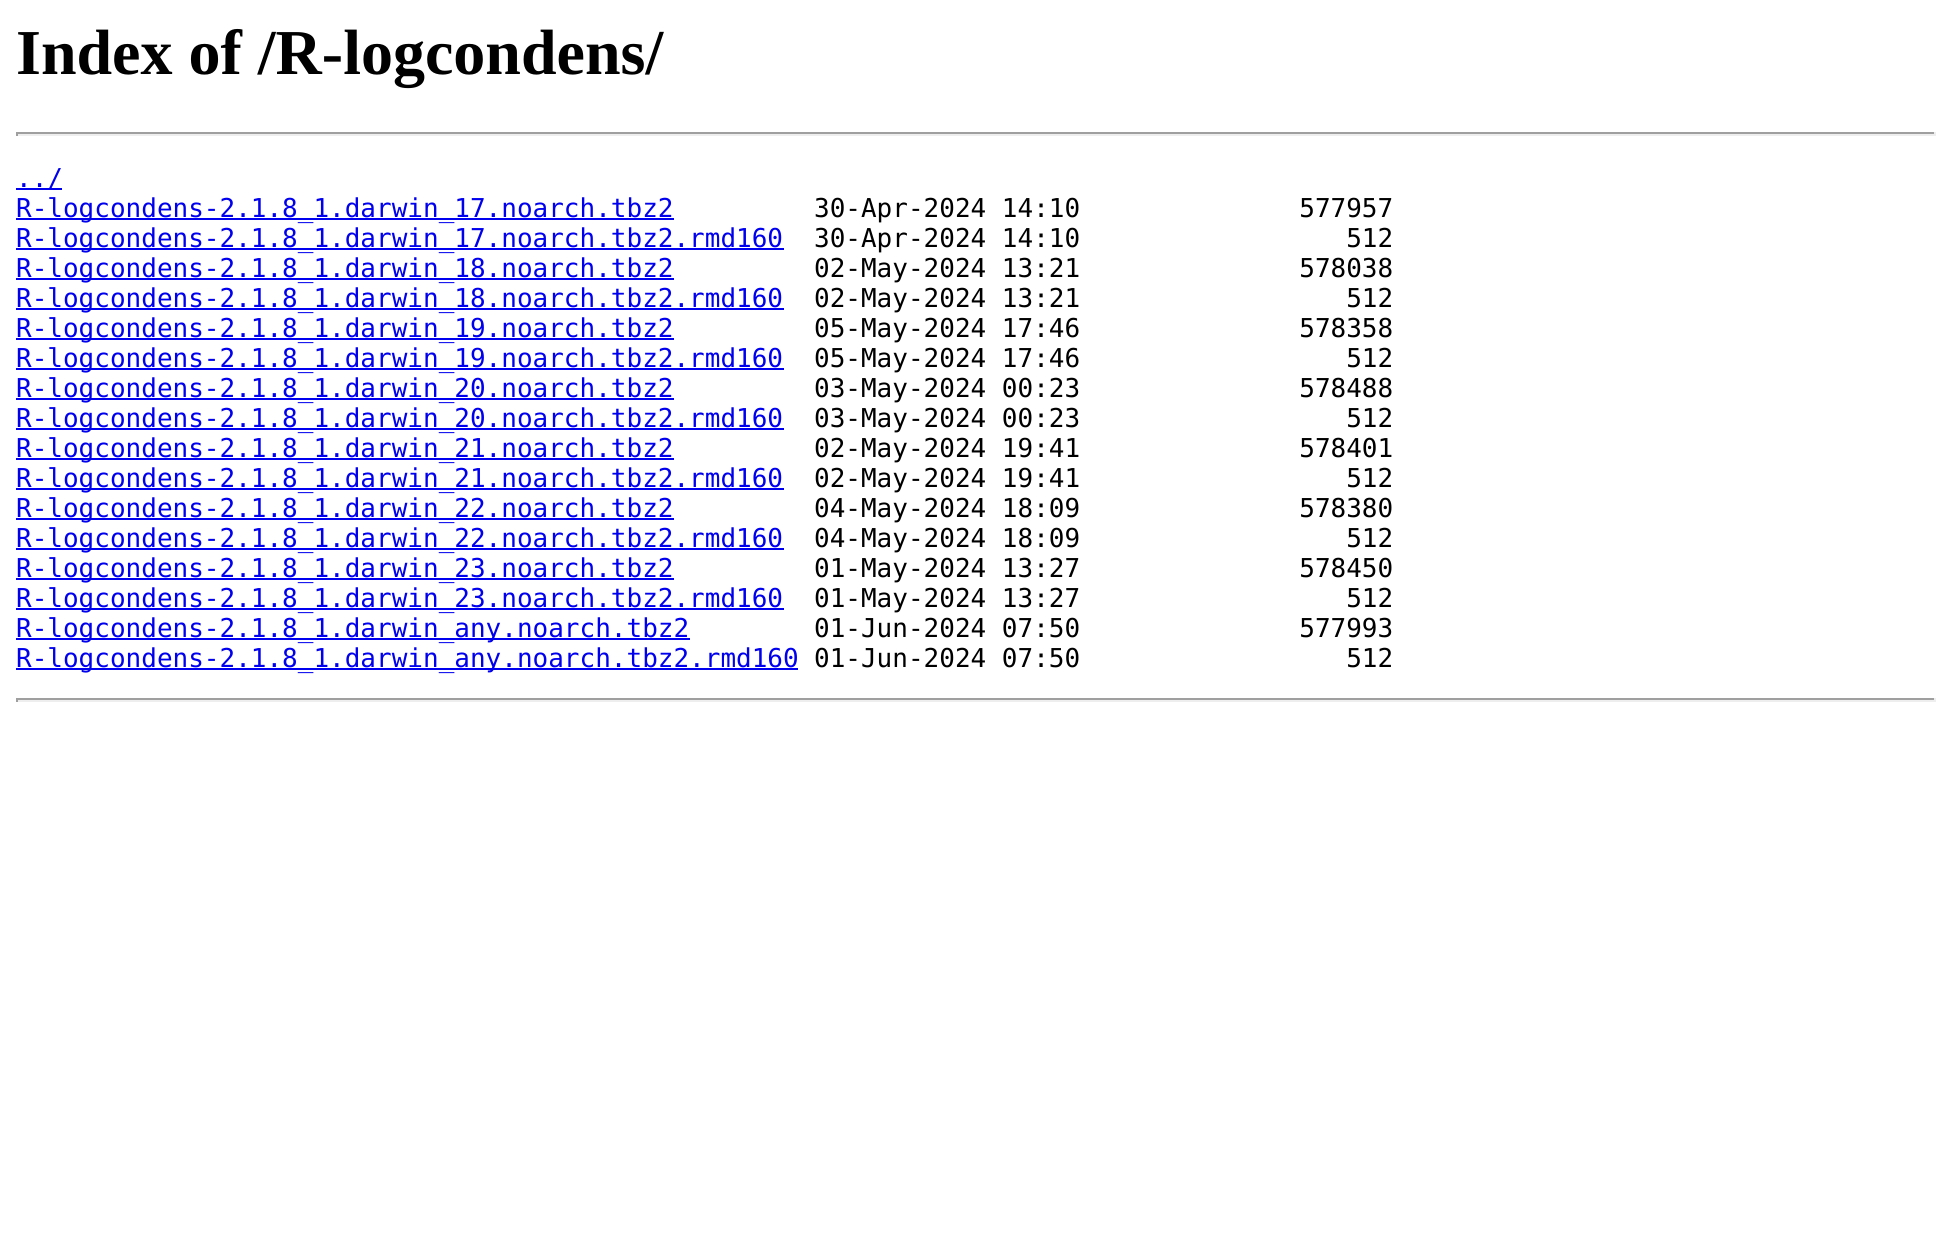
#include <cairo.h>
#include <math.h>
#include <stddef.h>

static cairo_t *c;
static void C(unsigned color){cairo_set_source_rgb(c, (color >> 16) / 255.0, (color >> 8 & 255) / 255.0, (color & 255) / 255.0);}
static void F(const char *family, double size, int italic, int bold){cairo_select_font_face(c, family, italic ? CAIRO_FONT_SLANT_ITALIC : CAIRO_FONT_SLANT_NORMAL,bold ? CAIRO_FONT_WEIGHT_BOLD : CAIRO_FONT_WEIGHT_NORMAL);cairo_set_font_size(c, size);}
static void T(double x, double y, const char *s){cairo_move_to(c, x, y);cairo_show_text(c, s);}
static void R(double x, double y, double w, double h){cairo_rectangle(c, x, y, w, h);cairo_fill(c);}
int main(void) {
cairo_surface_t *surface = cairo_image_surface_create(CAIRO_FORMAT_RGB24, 1952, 1251);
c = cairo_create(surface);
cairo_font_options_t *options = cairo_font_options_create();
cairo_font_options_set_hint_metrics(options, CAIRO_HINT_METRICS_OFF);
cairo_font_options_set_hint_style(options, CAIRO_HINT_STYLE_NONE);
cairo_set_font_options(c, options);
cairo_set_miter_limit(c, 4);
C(0xffffff);
cairo_paint(c);
F("Liberation Serif",64,0,1);
C(0x000000);
T(16,74,"Index of /R-logcondens/");
C(0x9f9f9f);
R(16,132,1920,2);
C(0xeeeeee);
R(1934,132,2,4);
R(16,134,1920,2);
C(0x9f9f9f);
R(16,132,2,4);
C(0x0000ee);
R(16,188,46,2);
F("DejaVu Sans Mono",26,0,0);
T(16,187,"../");
R(16,218,658,2);
T(16,217,"R-logcondens-2.1.8_1.darwin_17.noarch.tbz2");
C(0x000000);
T(814,217,"30-Apr-2024 14:10              577957");
C(0x0000ee);
R(16,248,768,2);
T(16,247,"R-logcondens-2.1.8_1.darwin_17.noarch.tbz2.rmd160");
C(0x000000);
T(814,247,"30-Apr-2024 14:10                 512");
C(0x0000ee);
R(16,278,658,2);
T(16,277,"R-logcondens-2.1.8_1.darwin_18.noarch.tbz2");
C(0x000000);
T(814,277,"02-May-2024 13:21              578038");
C(0x0000ee);
R(16,308,768,2);
T(16,307,"R-logcondens-2.1.8_1.darwin_18.noarch.tbz2.rmd160");
C(0x000000);
T(814,307,"02-May-2024 13:21                 512");
C(0x0000ee);
R(16,338,658,2);
T(16,337,"R-logcondens-2.1.8_1.darwin_19.noarch.tbz2");
C(0x000000);
T(814,337,"05-May-2024 17:46              578358");
C(0x0000ee);
R(16,368,768,2);
T(16,367,"R-logcondens-2.1.8_1.darwin_19.noarch.tbz2.rmd160");
C(0x000000);
T(814,367,"05-May-2024 17:46                 512");
C(0x0000ee);
R(16,398,658,2);
T(16,397,"R-logcondens-2.1.8_1.darwin_20.noarch.tbz2");
C(0x000000);
T(814,397,"03-May-2024 00:23              578488");
C(0x0000ee);
R(16,428,768,2);
T(16,427,"R-logcondens-2.1.8_1.darwin_20.noarch.tbz2.rmd160");
C(0x000000);
T(814,427,"03-May-2024 00:23                 512");
C(0x0000ee);
R(16,458,658,2);
T(16,457,"R-logcondens-2.1.8_1.darwin_21.noarch.tbz2");
C(0x000000);
T(814,457,"02-May-2024 19:41              578401");
C(0x0000ee);
R(16,488,768,2);
T(16,487,"R-logcondens-2.1.8_1.darwin_21.noarch.tbz2.rmd160");
C(0x000000);
T(814,487,"02-May-2024 19:41                 512");
C(0x0000ee);
R(16,518,658,2);
T(16,517,"R-logcondens-2.1.8_1.darwin_22.noarch.tbz2");
C(0x000000);
T(814,517,"04-May-2024 18:09              578380");
C(0x0000ee);
R(16,548,768,2);
T(16,547,"R-logcondens-2.1.8_1.darwin_22.noarch.tbz2.rmd160");
C(0x000000);
T(814,547,"04-May-2024 18:09                 512");
C(0x0000ee);
R(16,578,658,2);
T(16,577,"R-logcondens-2.1.8_1.darwin_23.noarch.tbz2");
C(0x000000);
T(814,577,"01-May-2024 13:27              578450");
C(0x0000ee);
R(16,608,768,2);
T(16,607,"R-logcondens-2.1.8_1.darwin_23.noarch.tbz2.rmd160");
C(0x000000);
T(814,607,"01-May-2024 13:27                 512");
C(0x0000ee);
R(16,638,674,2);
T(16,637,"R-logcondens-2.1.8_1.darwin_any.noarch.tbz2");
C(0x000000);
T(814,637,"01-Jun-2024 07:50              577993");
C(0x0000ee);
R(16,668,782,2);
T(16,667,"R-logcondens-2.1.8_1.darwin_any.noarch.tbz2.rmd160");
C(0x000000);
T(814,667,"01-Jun-2024 07:50                 512");
C(0x9f9f9f);
R(16,698,1920,2);
C(0xeeeeee);
R(1934,698,2,4);
R(16,700,1920,2);
C(0x9f9f9f);
R(16,698,2,4);
cairo_surface_write_to_png(surface, "o.png");
cairo_font_options_destroy(options);
cairo_destroy(c);
cairo_surface_destroy(surface);
return 0;
}
